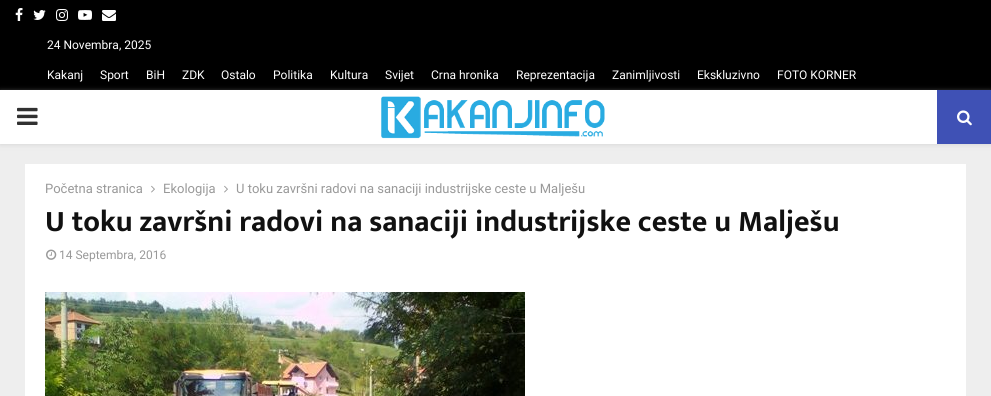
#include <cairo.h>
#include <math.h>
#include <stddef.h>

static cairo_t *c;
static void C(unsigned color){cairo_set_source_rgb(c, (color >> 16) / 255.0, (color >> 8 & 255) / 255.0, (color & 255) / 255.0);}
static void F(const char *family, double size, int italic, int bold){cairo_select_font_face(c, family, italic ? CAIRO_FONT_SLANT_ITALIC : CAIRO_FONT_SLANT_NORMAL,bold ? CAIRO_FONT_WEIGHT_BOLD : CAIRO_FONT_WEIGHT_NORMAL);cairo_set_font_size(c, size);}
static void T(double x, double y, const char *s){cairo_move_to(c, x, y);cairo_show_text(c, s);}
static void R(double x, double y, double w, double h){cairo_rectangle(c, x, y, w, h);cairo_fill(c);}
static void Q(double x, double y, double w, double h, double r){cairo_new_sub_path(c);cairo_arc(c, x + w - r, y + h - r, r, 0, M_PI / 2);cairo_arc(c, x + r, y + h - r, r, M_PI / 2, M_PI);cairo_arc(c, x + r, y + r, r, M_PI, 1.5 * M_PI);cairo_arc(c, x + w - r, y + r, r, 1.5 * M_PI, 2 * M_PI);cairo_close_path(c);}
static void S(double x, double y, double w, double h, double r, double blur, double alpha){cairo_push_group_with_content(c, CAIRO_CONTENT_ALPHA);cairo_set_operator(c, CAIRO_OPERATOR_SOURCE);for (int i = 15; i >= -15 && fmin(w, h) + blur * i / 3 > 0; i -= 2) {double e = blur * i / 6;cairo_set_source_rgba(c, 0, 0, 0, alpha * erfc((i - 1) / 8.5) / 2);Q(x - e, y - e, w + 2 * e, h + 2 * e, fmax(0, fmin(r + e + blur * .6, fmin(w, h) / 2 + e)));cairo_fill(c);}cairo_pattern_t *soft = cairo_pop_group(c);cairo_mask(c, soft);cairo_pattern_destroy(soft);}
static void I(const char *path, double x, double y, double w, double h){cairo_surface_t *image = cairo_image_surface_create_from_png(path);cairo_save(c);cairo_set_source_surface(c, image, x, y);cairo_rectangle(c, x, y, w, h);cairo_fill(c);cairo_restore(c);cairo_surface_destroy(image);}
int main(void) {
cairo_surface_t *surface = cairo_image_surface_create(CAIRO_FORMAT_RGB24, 991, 396);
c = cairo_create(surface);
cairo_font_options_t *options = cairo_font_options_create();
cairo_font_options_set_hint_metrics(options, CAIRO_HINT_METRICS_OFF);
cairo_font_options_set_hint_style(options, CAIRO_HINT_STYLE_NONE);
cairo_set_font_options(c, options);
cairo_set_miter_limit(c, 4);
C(0xeeeeee);
cairo_paint(c);
C(0x000000);
R(0,0,991,90);
I("1.png",15,8,8,13);
I("2.png",33,10,13,10);
I("3.png",56,9,12,12);
I("4.png",78,10,14,10);
I("5.png",102,10,14,11);
F("Roboto",12,0,0);
C(0xffffff);
T(47,49,"24 Novembra, 2025");
T(47,79,"Kakanj");
T(100,79,"Sport");
T(146,79,"BiH");
T(182,79,"ZDK");
T(221,79,"Ostalo");
T(273,79,"Politika");
T(330,79,"Kultura");
T(385,79,"Svijet");
T(431,79,"Crna hronika");
T(516,79,"Reprezentacija");
T(612,79,"Zanimljivosti");
T(697,79,"Ekskluzivno");
T(777,79,"FOTO KORNER");
C(0xbebebe);
S(0,91,991,54,0,2.5,.46);
C(0xffffff);
R(0,90,937,54);
I("6.png",17,107,21,18);
I("7.png",381,96,224,43);
C(0x3f51b5);
R(937,90,54,54);
I("8.png",957,110,15,16);
C(0xffffff);
R(25,164,941,232);
F("Roboto",13,0,0);
C(0x999999);
T(45,193,"Početna stranica");
I("9.png",151,185,4,8);
T(163,193,"Ekologija");
I("9.png",224,185,4,8);
T(236,193,"U toku završni radovi na sanaciji industrijske ceste u Malješu");
F("Mukta Vaani",30,0,1);
C(0x111111);
T(45,231,"U toku završni radovi na sanaciji industrijske ceste u Malješu");
I("10.png",46,249,11,11);
F("Roboto",12,0,0);
C(0x999999);
T(59,259,"14 Septembra, 2016");
I("11.png",45,292,480,104);
cairo_surface_write_to_png(surface, "o.png");
cairo_font_options_destroy(options);
cairo_destroy(c);
cairo_surface_destroy(surface);
return 0;
}
